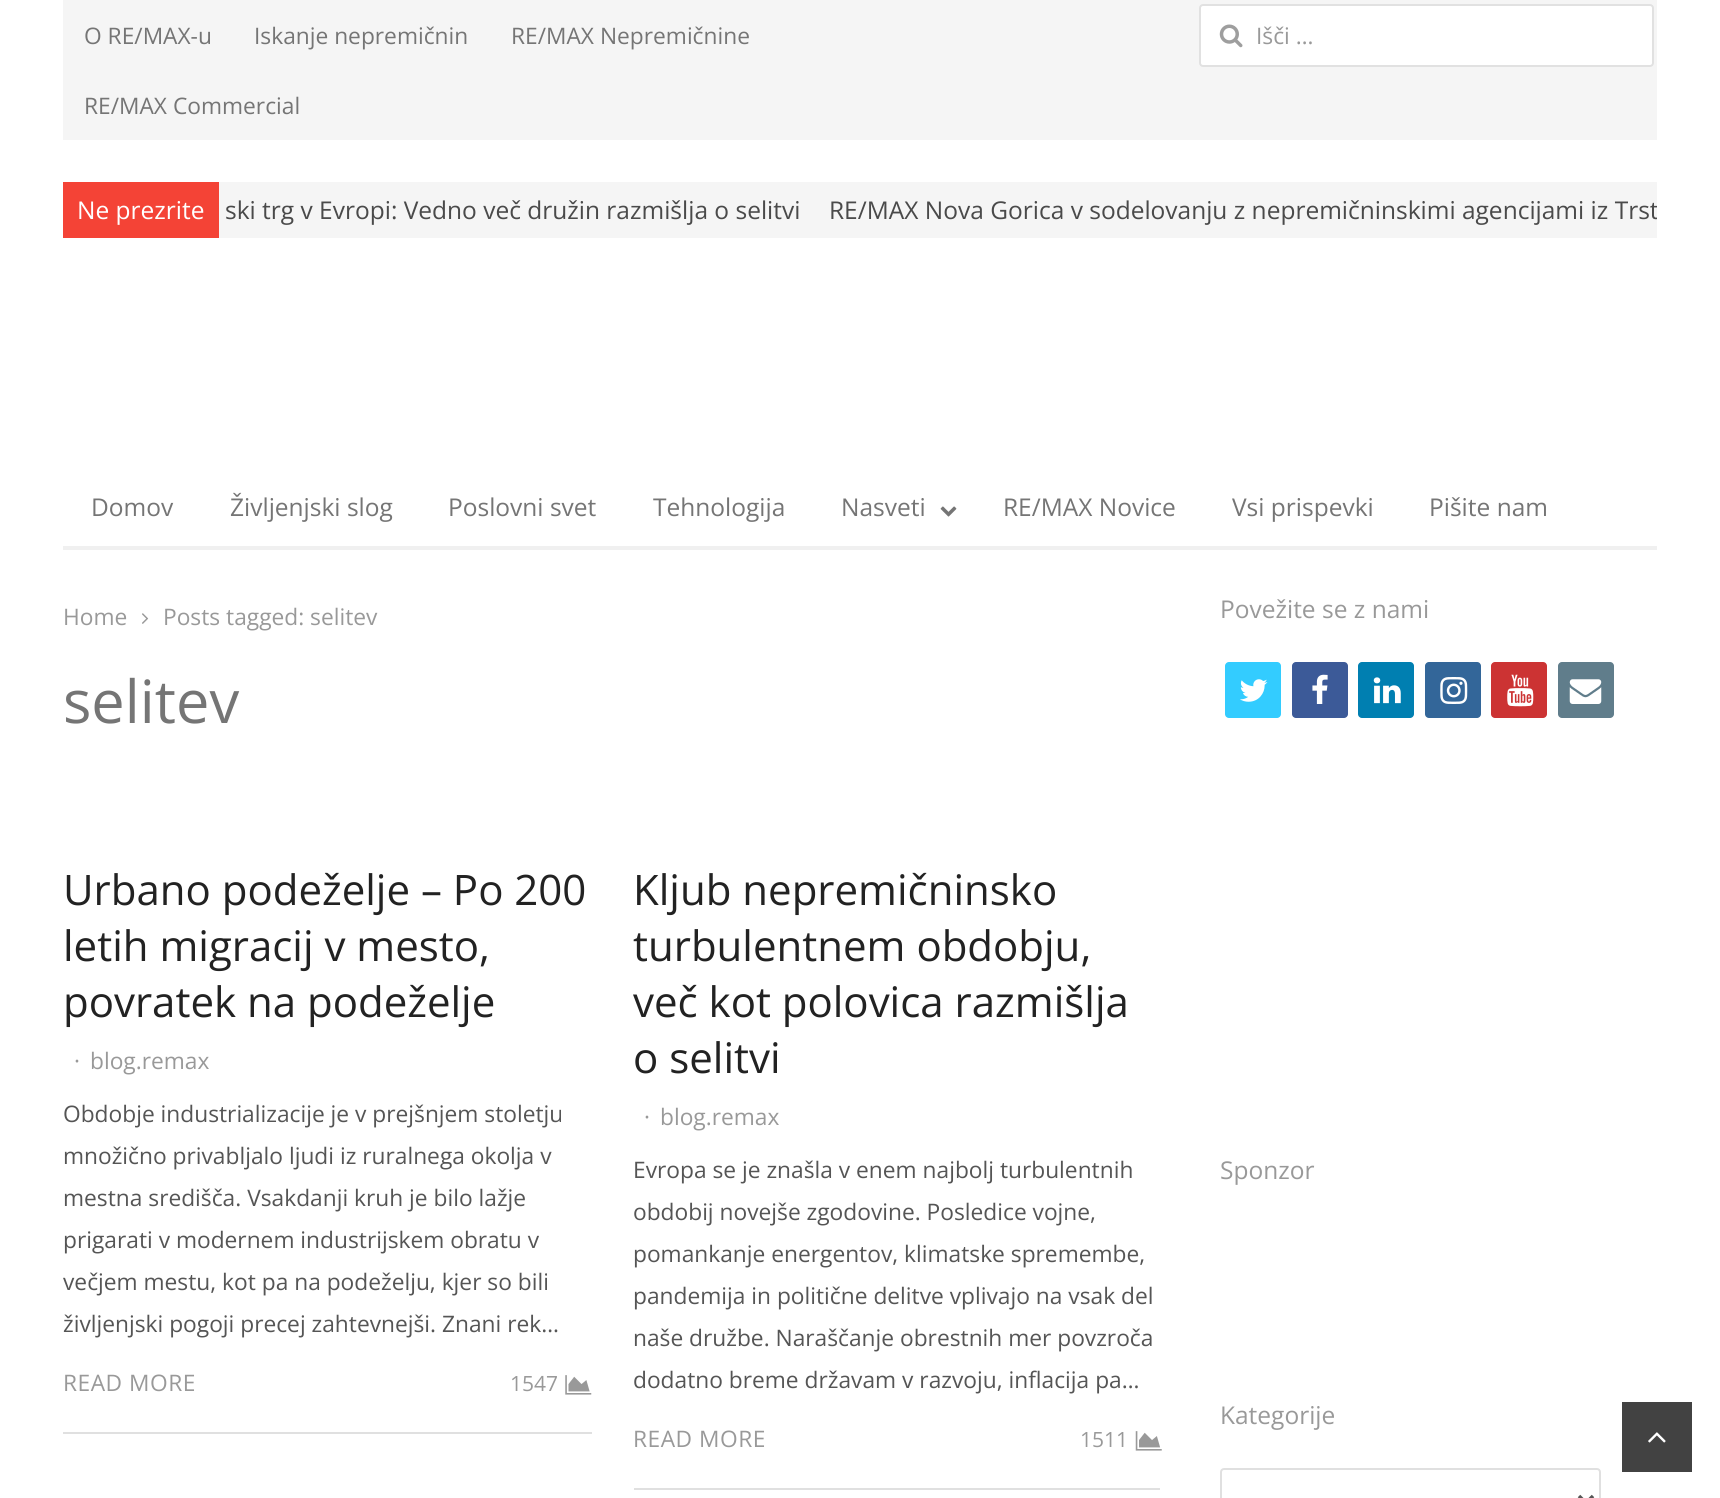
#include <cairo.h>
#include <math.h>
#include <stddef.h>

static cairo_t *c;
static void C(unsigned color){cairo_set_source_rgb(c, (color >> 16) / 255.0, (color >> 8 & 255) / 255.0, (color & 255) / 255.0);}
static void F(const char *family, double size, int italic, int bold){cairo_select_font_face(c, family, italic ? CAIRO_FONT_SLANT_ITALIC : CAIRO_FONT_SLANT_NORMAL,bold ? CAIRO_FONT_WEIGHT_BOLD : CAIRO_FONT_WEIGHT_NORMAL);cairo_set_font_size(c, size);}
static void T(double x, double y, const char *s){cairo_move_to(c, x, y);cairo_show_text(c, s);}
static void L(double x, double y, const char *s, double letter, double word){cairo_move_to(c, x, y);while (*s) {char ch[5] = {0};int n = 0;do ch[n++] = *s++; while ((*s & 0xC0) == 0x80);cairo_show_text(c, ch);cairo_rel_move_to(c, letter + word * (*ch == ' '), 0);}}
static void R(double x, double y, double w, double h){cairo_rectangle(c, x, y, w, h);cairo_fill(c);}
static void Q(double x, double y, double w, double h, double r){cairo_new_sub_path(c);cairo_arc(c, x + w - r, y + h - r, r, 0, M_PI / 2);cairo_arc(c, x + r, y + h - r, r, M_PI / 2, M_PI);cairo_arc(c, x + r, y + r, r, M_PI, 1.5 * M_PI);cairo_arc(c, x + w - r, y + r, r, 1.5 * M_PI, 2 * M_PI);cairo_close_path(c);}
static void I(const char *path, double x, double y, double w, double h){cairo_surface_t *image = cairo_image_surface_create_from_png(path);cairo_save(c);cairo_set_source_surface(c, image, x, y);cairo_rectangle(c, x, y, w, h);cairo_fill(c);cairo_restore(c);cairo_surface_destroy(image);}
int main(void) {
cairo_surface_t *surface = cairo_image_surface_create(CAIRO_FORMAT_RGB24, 1720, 1498);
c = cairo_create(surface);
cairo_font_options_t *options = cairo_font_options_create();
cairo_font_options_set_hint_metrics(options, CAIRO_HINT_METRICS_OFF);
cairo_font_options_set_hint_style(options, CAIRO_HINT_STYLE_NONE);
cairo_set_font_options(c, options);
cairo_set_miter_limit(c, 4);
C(0xffffff);
cairo_paint(c);
C(0xf5f5f5);
R(63,0,1594,140);
F("Open Sans",22.75,0,0);
C(0x757575);
T(84,44,"O RE/MAX-u");
T(254,44,"Iskanje nepremičnin");
T(511,44,"RE/MAX Nepremičnine");
T(84,114,"RE/MAX Commercial");
C(0xffffff);
Q(1199,4,455,63,4);
cairo_fill(c);
Q(1200,5,453,61,3);
cairo_set_source_rgba(c,0,0,0,0.12);
cairo_stroke(c);
I("1.png",1219,24,24,24);
C(0x999999);
T(1256,44,"Išči …");
C(0xf44336);
R(63,182,156,56);
F("Open Sans",24.5,0,0);
C(0xffffff);
T(77,219,"Ne prezrite");
C(0xf5f5f5);
R(219,182,1438,56);
C(0x4a4a4a);
T(225,219,"ski trg v Evropi: Vedno več družin razmišlja o selitvi");
cairo_save(c);
cairo_rectangle(c,63,182,1594,56);
cairo_clip(c);
T(829,219,"RE/MAX Nova Gorica v sodelovanju z nepremičninskimi agencijami iz Trst");
cairo_restore(c);
C(0xf0f0f0);
R(63,546,1594,4);
C(0x757575);
T(91,516,"Domov");
T(230,516,"Življenjski slog");
T(448,516,"Poslovni svet");
T(653,516,"Tehnologija");
T(841,516,"Nasveti");
I("2.png",940,506,17,11);
T(1003,516,"RE/MAX Novice");
T(1232,516,"Vsi prispevki");
T(1429,516,"Pišite nam");
F("Open Sans",22.75,0,0);
C(0x999999);
T(63,625,"Home");
I("3.png",142,613,7,11);
T(163,625,"Posts tagged: selitev");
F("Open Sans",59.5,0,0);
C(0x757575);
T(63,723,"selitev");
F("Open Sans",42,0,0);
C(0x222222);
T(63,905,"Urbano podeželje – Po 200");
T(63,961,"letih migracij v mesto,");
T(63,1017,"povratek na podeželje");
F("Open Sans",22.75,0,0);
C(0x999999);
T(74,1069,"·");
T(90,1069,"blog.remax");
C(0x555555);
T(63,1122,"Obdobje industrializacije je v prejšnjem stoletju");
T(63,1164,"množično privabljalo ljudi iz ruralnega okolja v");
T(63,1206,"mestna središča. Vsakdanji kruh je bilo lažje");
T(63,1248,"prigarati v modernem industrijskem obratu v");
T(63,1290,"večjem mestu, kot pa na podeželju, kjer so bili");
T(63,1332,"življenjski pogoji precej zahtevnejši. Znani rek…");
C(0x999999);
L(63,1391,"READ MORE",.5,0);
F("Open Sans",21,0,0);
T(510,1391,"1547");
I("4.png",565,1375,27,20);
C(0xe0e0e0);
R(63,1432,529,2);
F("Open Sans",42,0,0);
C(0x222222);
T(633,905,"Kljub nepremičninsko");
T(633,961,"turbulentnem obdobju,");
T(633,1017,"več kot polovica razmišlja");
T(633,1073,"o selitvi");
F("Open Sans",22.75,0,0);
C(0x999999);
T(644,1125,"·");
T(660,1125,"blog.remax");
C(0x555555);
T(633,1178,"Evropa se je znašla v enem najbolj turbulentnih");
T(633,1220,"obdobij novejše zgodovine. Posledice vojne,");
T(633,1262,"pomankanje energentov, klimatske spremembe,");
T(633,1304,"pandemija in politične delitve vplivajo na vsak del");
T(633,1346,"naše družbe. Naraščanje obrestnih mer povzroča");
T(633,1388,"dodatno breme državam v razvoju, inflacija pa…");
C(0x999999);
L(633,1447,"READ MORE",.5,0);
F("Open Sans",21,0,0);
T(1080,1447,"1511");
I("5.png",1135,1431,27,20);
C(0xe0e0e0);
R(634,1488,526,2);
F("Open Sans",24.5,0,0);
C(0x999999);
T(1220,618,"Povežite se z nami");
C(0x33ccff);
Q(1225,662,56,56,4);
cairo_fill(c);
I("6.png",1240,679,28,23);
C(0x3c5a98);
Q(1292,662,56,56,4);
cairo_fill(c);
I("7.png",1312,674,16,30);
C(0x007fb1);
Q(1358,662,56,56,4);
cairo_fill(c);
I("8.png",1373,677,28,27);
C(0x336699);
Q(1425,662,56,56,4);
cairo_fill(c);
I("9.png",1440,677,28,27);
C(0xcc3333);
Q(1491,662,56,56,4);
cairo_fill(c);
I("10.png",1507,674,27,33);
C(0x607d8b);
Q(1558,662,56,56,4);
cairo_fill(c);
I("11.png",1569,679,33,25);
C(0x999999);
T(1220,1179,"Sponzor");
T(1220,1424,"Kategorije");
Q(1221,1469,379,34,3);
C(0xe0e0e0);
cairo_stroke(c);
cairo_new_path(c);
cairo_move_to(c,1579,1496);
cairo_line_to(c,1586,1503);
cairo_line_to(c,1593,1496);
C(0x555555);
cairo_set_line_width(c,3.5);
cairo_stroke(c);
C(0x424242);
R(1622,1402,70,70);
I("12.png",1648,1432,18,11);
cairo_surface_write_to_png(surface, "o.png");
cairo_font_options_destroy(options);
cairo_destroy(c);
cairo_surface_destroy(surface);
return 0;
}
